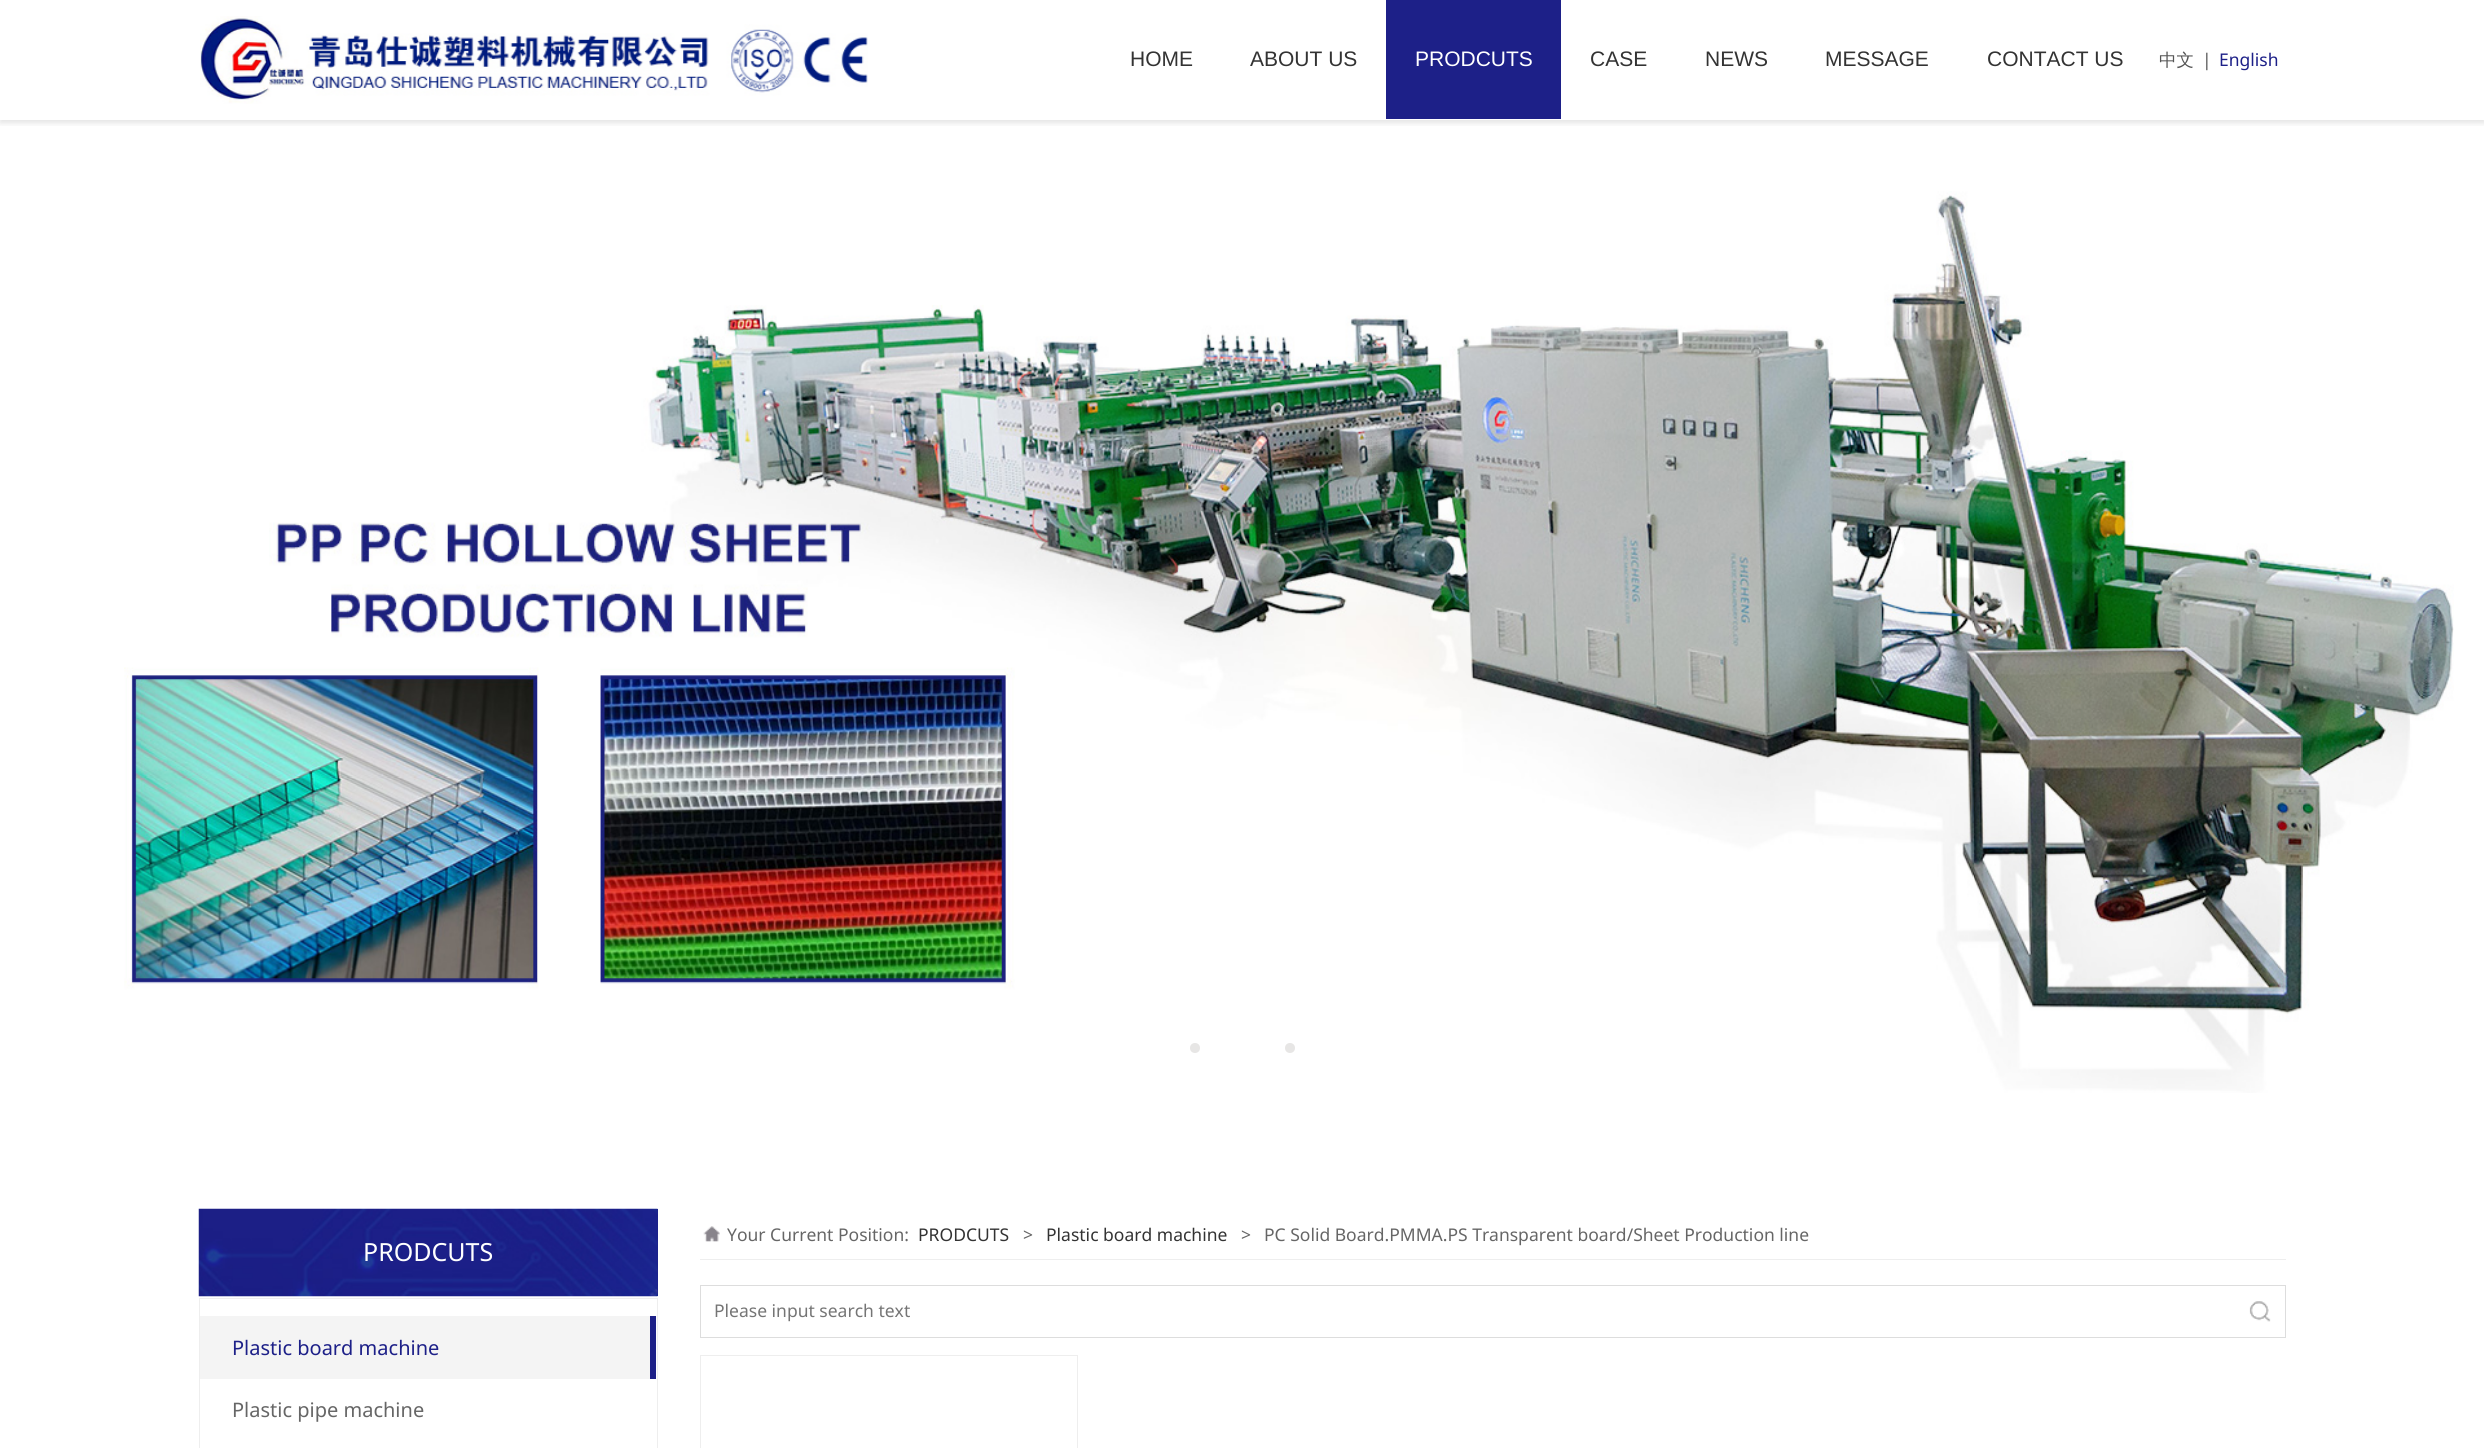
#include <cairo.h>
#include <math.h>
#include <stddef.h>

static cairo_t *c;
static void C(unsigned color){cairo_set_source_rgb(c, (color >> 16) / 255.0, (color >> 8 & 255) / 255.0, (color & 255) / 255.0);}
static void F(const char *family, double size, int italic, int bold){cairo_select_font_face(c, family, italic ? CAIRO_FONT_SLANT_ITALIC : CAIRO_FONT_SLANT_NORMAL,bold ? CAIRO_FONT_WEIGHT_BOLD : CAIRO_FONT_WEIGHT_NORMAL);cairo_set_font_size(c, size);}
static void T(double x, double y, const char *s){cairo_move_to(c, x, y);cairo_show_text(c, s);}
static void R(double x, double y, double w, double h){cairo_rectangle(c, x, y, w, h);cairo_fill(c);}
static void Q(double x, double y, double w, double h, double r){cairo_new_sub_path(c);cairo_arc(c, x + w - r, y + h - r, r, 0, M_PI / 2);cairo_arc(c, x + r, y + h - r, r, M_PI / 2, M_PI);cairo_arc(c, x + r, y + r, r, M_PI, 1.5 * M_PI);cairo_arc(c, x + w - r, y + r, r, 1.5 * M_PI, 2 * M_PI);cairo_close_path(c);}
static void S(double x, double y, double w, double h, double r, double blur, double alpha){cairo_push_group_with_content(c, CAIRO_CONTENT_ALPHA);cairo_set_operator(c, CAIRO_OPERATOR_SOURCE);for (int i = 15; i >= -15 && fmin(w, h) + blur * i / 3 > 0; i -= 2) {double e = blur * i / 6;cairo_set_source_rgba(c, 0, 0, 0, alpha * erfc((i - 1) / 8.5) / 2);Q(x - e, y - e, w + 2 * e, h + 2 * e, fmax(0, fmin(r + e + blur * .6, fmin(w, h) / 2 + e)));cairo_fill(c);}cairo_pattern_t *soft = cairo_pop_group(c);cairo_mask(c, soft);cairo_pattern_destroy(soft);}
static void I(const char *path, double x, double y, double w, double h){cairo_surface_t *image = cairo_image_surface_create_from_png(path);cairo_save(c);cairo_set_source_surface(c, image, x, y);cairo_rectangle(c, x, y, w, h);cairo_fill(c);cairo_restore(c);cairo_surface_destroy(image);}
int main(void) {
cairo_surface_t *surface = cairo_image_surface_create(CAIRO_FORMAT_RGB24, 2484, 1448);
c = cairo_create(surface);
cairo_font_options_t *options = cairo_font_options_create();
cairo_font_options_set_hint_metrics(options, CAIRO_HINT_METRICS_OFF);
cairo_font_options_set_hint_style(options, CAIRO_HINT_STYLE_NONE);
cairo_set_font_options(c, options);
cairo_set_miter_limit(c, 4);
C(0xffffff);
cairo_paint(c);
cairo_save(c);
cairo_rectangle(c,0,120,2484,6);
cairo_clip(c);
C(0x000000);
S(0,3,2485,120,0,3,.11);
cairo_restore(c);
I("1.png",200,16,668,88);
F("Liberation Sans",21,0,0);
C(0x333333);
T(1130,66,"HOME");
T(1250,66,"ABOUT US");
C(0x1d2088);
R(1386,0,175,119);
C(0xffffff);
T(1415,66,"PRODCUTS");
C(0x333333);
T(1590,66,"CASE");
T(1705,66,"NEWS");
T(1825,66,"MESSAGE");
T(1987,66,"CONTACT US");
F("WenQuanYi Zen Hei Medium",17.5,0,0);
C(0x555555);
T(2159,66,"中文");
F("Noto Sans",17.5,0,0);
T(2202,66,"|");
C(0x1d2088);
T(2219,66,"English");
I("2.png",124,191,2330,902);
C(0xe7e6e5);
cairo_arc(c,1195,1048,5,0,2 * M_PI);
cairo_fill(c);
cairo_arc(c,1290,1048,5,0,2 * M_PI);
cairo_fill(c);
C(0x1d2088);
R(657,1209,1,87);
I("3.png",198,1208,460,89);
F("Noto Sans",25,0,0);
C(0xffffff);
T(363,1261,"PRODCUTS");
cairo_rectangle(c,199.5,1298.5,458,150);
C(0xeeeeee);
cairo_set_line_width(c,1);
cairo_stroke(c);
C(0xf4f4f4);
R(200,1316,450,63);
F("Noto Sans",20,0,0);
C(0x1d2088);
T(232,1355,"Plastic board machine");
R(650,1316,6,63);
C(0x666666);
T(232,1417,"Plastic pipe machine");
I("4.png",703,1226,17,16);
C(0xeeeeee);
R(700,1259,1586,1);
F("Noto Sans",17.5,0,0);
C(0x666666);
T(727,1241,"Your Current Position:");
C(0x333333);
T(918,1241,"PRODCUTS");
C(0x666666);
T(1023,1241,">");
C(0x333333);
T(1046,1241,"Plastic board machine");
C(0x666666);
T(1241,1241,">");
T(1264,1241,"PC Solid Board.PMMA.PS Transparent board/Sheet Production line");
cairo_rectangle(c,700.5,1285.5,1585,52);
C(0xdddddd);
cairo_stroke(c);
C(0x757575);
T(714,1317,"Please input search text");
I("5.png",2249,1301,22,21);
cairo_rectangle(c,700.5,1355.5,377,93);
C(0xeeeeee);
cairo_stroke(c);
cairo_surface_write_to_png(surface, "o.png");
cairo_font_options_destroy(options);
cairo_destroy(c);
cairo_surface_destroy(surface);
return 0;
}
